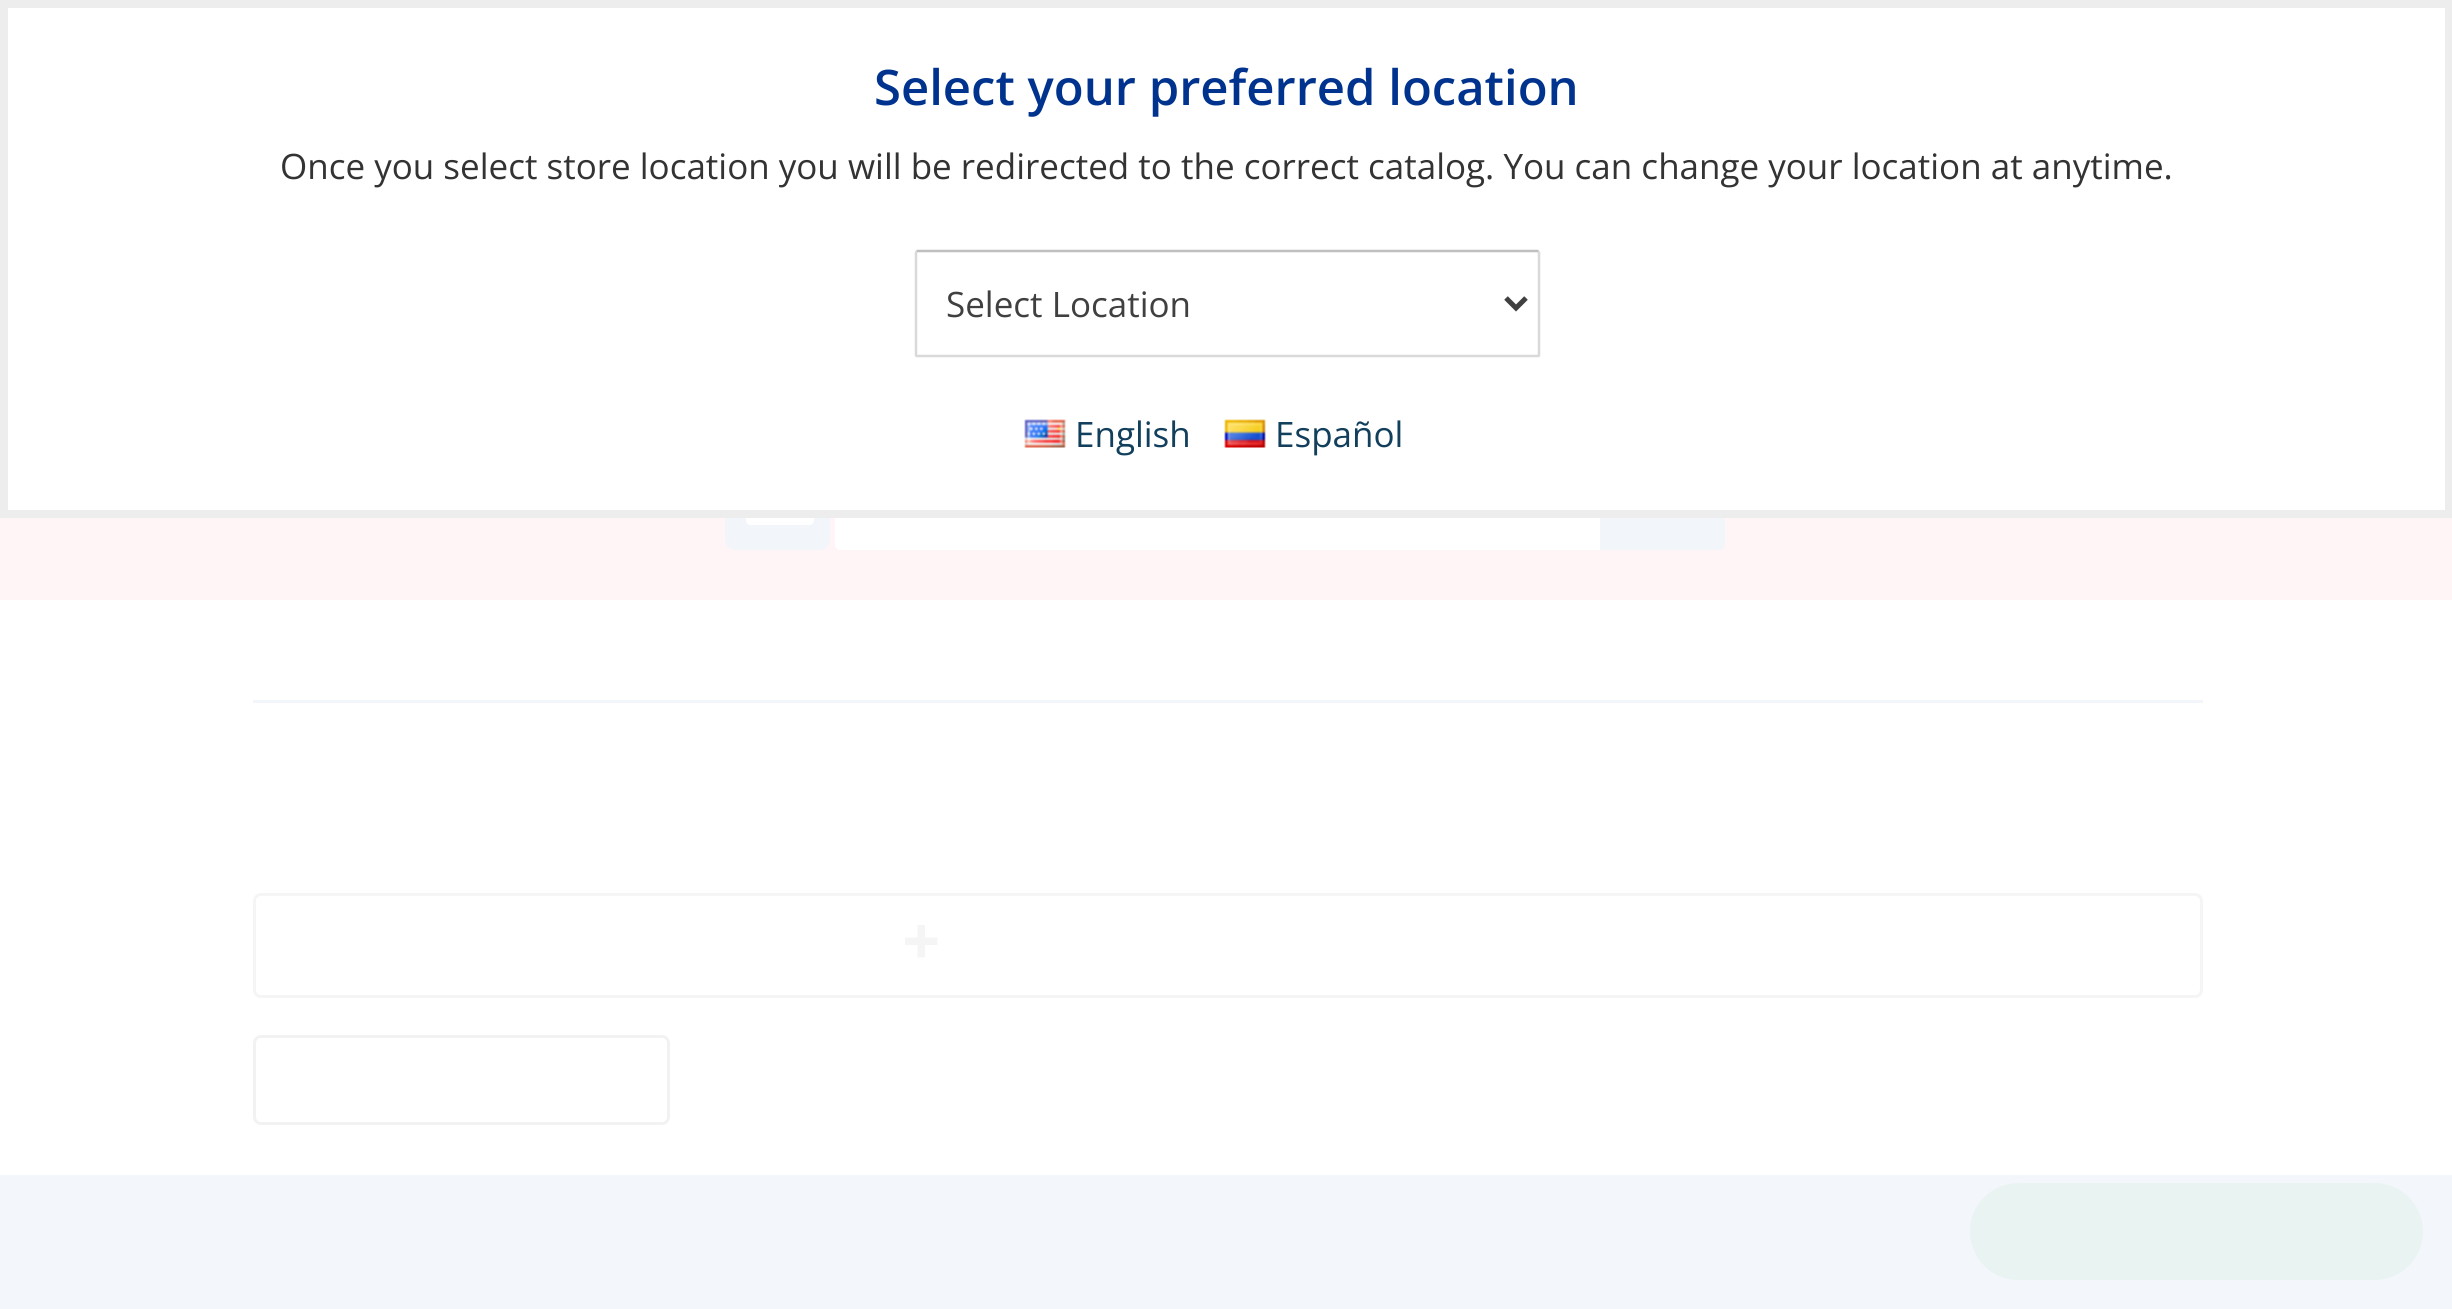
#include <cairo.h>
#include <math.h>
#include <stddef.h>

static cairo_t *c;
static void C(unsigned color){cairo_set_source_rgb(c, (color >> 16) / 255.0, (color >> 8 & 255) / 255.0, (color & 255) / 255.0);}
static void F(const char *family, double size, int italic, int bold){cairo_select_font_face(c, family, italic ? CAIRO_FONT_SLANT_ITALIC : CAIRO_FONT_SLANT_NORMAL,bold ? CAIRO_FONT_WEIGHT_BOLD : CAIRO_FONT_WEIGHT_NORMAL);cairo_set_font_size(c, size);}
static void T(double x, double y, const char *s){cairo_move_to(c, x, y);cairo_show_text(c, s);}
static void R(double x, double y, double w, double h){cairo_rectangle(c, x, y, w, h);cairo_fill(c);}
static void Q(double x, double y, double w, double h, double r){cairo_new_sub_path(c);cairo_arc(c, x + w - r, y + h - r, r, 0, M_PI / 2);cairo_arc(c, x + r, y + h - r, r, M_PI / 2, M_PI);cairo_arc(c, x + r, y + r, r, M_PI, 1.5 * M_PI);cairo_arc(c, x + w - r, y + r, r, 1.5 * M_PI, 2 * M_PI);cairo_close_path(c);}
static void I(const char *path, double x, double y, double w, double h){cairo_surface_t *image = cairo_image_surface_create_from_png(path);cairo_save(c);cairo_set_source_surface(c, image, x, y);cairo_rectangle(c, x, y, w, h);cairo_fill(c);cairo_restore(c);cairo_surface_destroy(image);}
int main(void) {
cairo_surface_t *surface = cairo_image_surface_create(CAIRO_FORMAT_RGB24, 2452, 1309);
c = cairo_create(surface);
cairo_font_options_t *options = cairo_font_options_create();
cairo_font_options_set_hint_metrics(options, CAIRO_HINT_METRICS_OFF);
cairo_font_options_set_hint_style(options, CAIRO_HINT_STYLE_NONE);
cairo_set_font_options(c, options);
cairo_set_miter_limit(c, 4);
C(0xffffff);
cairo_paint(c);
C(0xfff5f6);
R(0,518,2452,82);
C(0xf2f5f9);
Q(725,445,105,105,10);
cairo_fill(c);
C(0xffffff);
cairo_new_path(c);
cairo_move_to(c,799,472);
cairo_curve_to(c,817,472,814,471,814,491);
cairo_line_to(c,814,513);
cairo_curve_to(c,814,516,815,522,812,524);
cairo_line_to(c,810,525);
cairo_line_to(c,760,525);
cairo_curve_to(c,746,525,746,527,746,513);
cairo_line_to(c,746,477);
cairo_curve_to(c,746,472,751,472,754,472);
cairo_line_to(c,761,472);
cairo_line_to(c,773,465);
cairo_line_to(c,787,465);
cairo_close_path(c);
cairo_move_to(c,780,514);
cairo_curve_to(c,800,514,800,484,780,484);
cairo_curve_to(c,760,484,760,514,780,514);
cairo_close_path(c);
cairo_fill(c);
Q(835,445,850,105,5);
cairo_fill(c);
C(0xf2f5f9);
cairo_new_path(c);
cairo_move_to(c,1600,445);
cairo_line_to(c,1720,445);
cairo_curve_to(c,1723,445,1725,447,1725,450);
cairo_line_to(c,1725,545);
cairo_curve_to(c,1725,548,1723,550,1720,550);
cairo_line_to(c,1600,550);
cairo_close_path(c);
cairo_fill(c);
C(0xffffff);
R(725,445,1000,65);
cairo_rectangle(c,4,4,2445,510);
C(0xededed);
cairo_set_line_width(c,8);
cairo_stroke(c);
F("Open Sans SemiBold",49,0,0);
C(0x00338e);
T(874,105,"Select your preferred location");
F("Open Sans",35,0,0);
C(0x333333);
T(280,179,"Once you select store location you will be redirected to the correct catalog. You can change your location at anytime.");
cairo_new_path(c);
cairo_move_to(c,916.5,251.5);
cairo_line_to(c,917.5,251);
cairo_line_to(c,1537.5,251);
cairo_line_to(c,1538.5,251.5);
C(0xc0c0c0);
cairo_set_line_width(c,2.5);
cairo_stroke(c);
cairo_new_path(c);
cairo_move_to(c,1538.5,251.5);
cairo_line_to(c,1539,252.5);
cairo_line_to(c,1539,355);
cairo_line_to(c,1538.5,356);
cairo_line_to(c,1537.5,356);
cairo_line_to(c,917.5,356);
cairo_line_to(c,916.5,356);
cairo_line_to(c,916,355);
cairo_line_to(c,916,252.5);
cairo_line_to(c,916.5,251.5);
C(0xd9d9d9);
cairo_stroke(c);
cairo_new_path(c);
cairo_move_to(c,1506,298);
cairo_line_to(c,1516,308);
cairo_line_to(c,1526,298);
C(0x404040);
cairo_set_line_width(c,5);
cairo_stroke(c);
T(946,317,"Select Location");
I("1.png",1024,419,42,29);
C(0x123f5c);
T(1075,447,"English");
I("2.png",1224,419,42,29);
T(1275,447,"Español");
C(0xf2f5f9);
R(253,700,1950,3);
Q(254.5,894.5,1947,102,6.5);
C(0xf5f5f5);
cairo_set_line_width(c,3);
cairo_stroke(c);
cairo_new_path(c);
cairo_move_to(c,937.5,937.5);
cairo_line_to(c,937.5,945);
cairo_line_to(c,925,945);
cairo_line_to(c,925,957.5);
cairo_line_to(c,917.5,957.5);
cairo_line_to(c,917.5,945);
cairo_line_to(c,905,945);
cairo_line_to(c,905,937.5);
cairo_line_to(c,917.5,937.5);
cairo_line_to(c,917.5,925);
cairo_line_to(c,925,925);
cairo_line_to(c,925,937.5);
cairo_close_path(c);
cairo_fill(c);
Q(254.5,1036.5,414,87,6.5);
C(0xf2f2f2);
cairo_stroke(c);
C(0xf3f6fa);
R(0,1175,2452,134);
C(0xe9f3f2);
Q(1970,1183,453,97,48.5);
cairo_fill(c);
cairo_surface_write_to_png(surface, "o.png");
cairo_font_options_destroy(options);
cairo_destroy(c);
cairo_surface_destroy(surface);
return 0;
}
